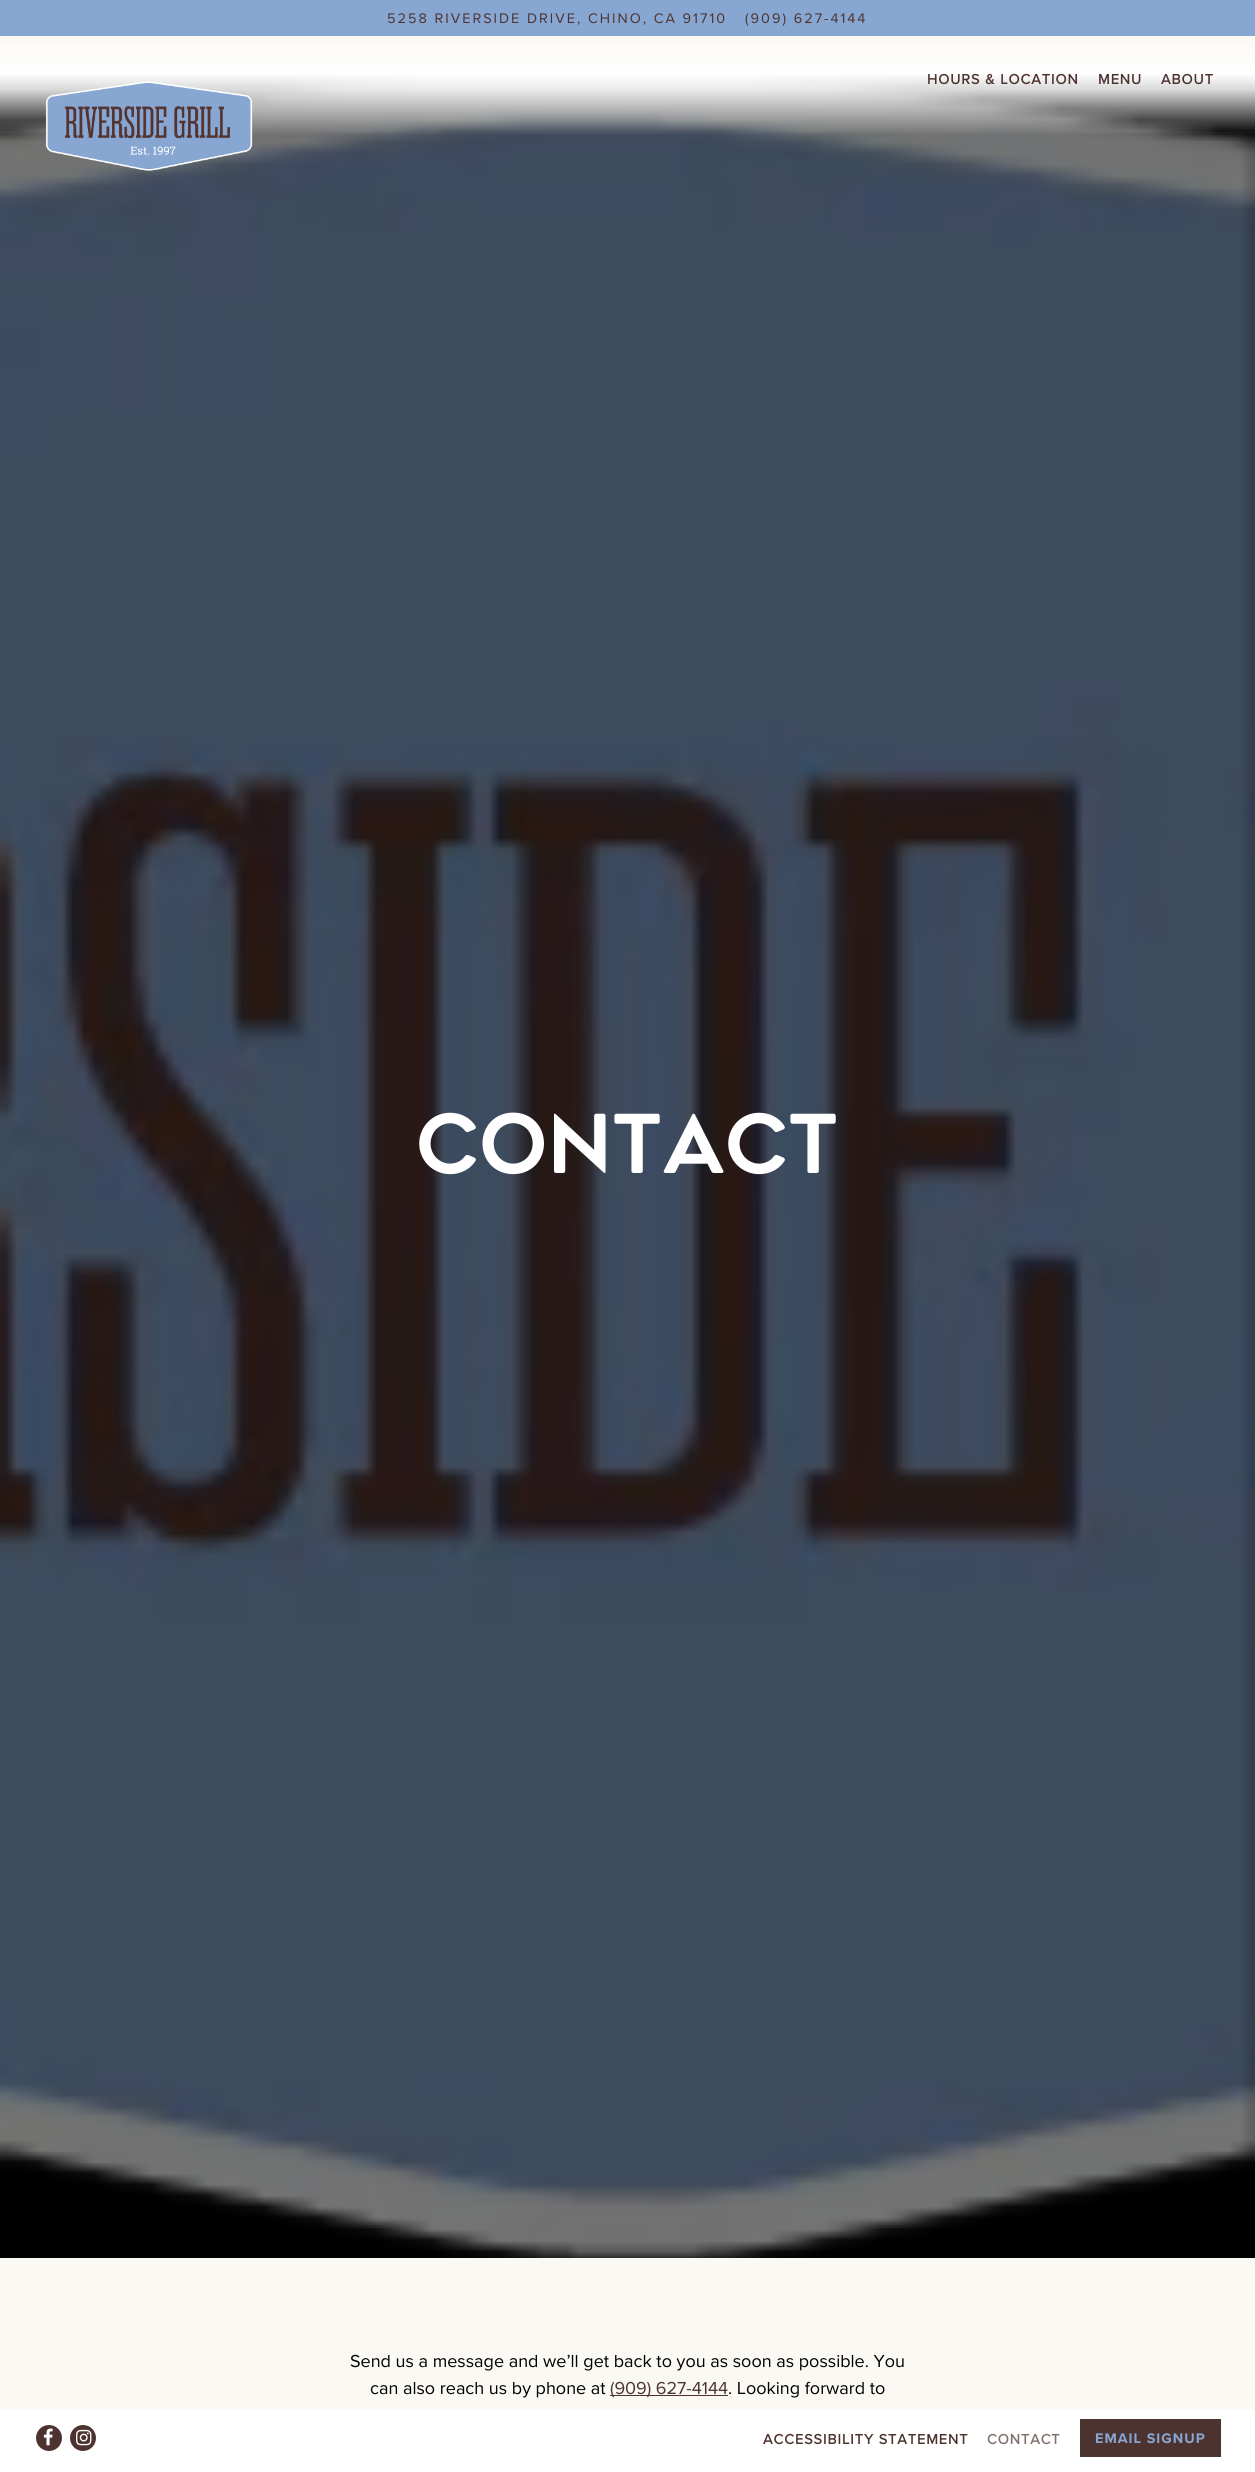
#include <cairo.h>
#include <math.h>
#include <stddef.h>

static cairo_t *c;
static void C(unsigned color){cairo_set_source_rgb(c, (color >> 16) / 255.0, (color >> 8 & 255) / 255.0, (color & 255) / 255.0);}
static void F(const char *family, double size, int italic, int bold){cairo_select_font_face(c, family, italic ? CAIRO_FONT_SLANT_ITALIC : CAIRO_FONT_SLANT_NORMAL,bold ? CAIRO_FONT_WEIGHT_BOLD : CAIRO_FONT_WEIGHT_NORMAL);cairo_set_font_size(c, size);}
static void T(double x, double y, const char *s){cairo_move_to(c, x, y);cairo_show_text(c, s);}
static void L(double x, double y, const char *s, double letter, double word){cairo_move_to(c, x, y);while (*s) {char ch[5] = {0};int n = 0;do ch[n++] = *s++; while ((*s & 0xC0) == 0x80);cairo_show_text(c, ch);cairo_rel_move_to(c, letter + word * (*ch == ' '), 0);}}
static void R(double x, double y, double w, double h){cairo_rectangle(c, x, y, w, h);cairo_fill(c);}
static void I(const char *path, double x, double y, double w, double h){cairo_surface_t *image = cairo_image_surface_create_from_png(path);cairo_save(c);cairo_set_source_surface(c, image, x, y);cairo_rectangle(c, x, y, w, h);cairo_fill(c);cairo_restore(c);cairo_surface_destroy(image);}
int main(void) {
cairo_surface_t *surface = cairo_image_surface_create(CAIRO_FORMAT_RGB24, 1255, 2472);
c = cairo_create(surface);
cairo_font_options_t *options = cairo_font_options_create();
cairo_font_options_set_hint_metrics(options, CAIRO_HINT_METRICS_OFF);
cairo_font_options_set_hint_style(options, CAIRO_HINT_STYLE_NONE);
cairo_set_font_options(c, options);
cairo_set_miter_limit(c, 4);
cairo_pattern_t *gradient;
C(0xfbf9f3);
cairo_paint(c);
C(0x87a6d2);
R(0,0,1255,36);
F("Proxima",14.4,0,0);
C(0x4d332f);
L(387,23,"5258 RIVERSIDE DRIVE, CHINO, CA 91710",2,0);
L(745,23,"(909) 627-4144",2,0);
C(0x000000);
R(0,74,1255,2184);
I("2.png",0,74,1255,2184);
gradient = cairo_pattern_create_linear(628,36,628,135);
cairo_pattern_add_color_stop_rgba(gradient,0,0.984,0.976,0.953,1);
cairo_pattern_add_color_stop_rgba(gradient,.38,1,1,1,1);
cairo_pattern_add_color_stop_rgba(gradient,.54,1,1,1,.85);
cairo_pattern_add_color_stop_rgba(gradient,1,1,1,1,0);
cairo_set_source(c,gradient);
cairo_pattern_destroy(gradient);
R(0,44,1255,90);
F("Proxima",14.4,0,1);
C(0x4d332f);
L(927,84,"HOURS & LOCATION",1,0);
L(1098,84,"MENU",1,0);
L(1161,84,"ABOUT",1,0);
I("1.png",45,81,208,90);
F("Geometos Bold",81,0,1);
C(0xffffff);
T(416,1173,"CONTACT");
F("Proxima",18,0,0);
C(0x000000);
T(350,2367,"Send us a message and we’ll get back to you as soon as possible. You");
T(370,2394,"can also reach us by phone at");
C(0x4d332f);
R(610,2395,118,1);
T(610,2394,"(909) 627-4144");
C(0x000000);
T(728,2394,". Looking forward to");
C(0xffffff);
R(0,2410,1255,62);
C(0x4d332f);
cairo_new_path(c);
cairo_arc(c,49,2438,13,0,2 * M_PI);
cairo_fill(c);
I("3.png",43,2428,10,18);
cairo_arc(c,83,2438,13,0,2 * M_PI);
cairo_fill(c);
I("4.png",76,2429,16,17);
F("Proxima",14.4,0,1);
L(763,2444,"ACCESSIBILITY STATEMENT",1,0);
C(0x82706d);
L(987,2444,"CONTACT",1,0);
C(0x4d332f);
R(1080,2419,141,38);
F("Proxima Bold",14.4,0,1);
C(0x87a6d2);
L(1095,2443,"EMAIL SIGNUP",1,0);
cairo_surface_write_to_png(surface, "o.png");
cairo_font_options_destroy(options);
cairo_destroy(c);
cairo_surface_destroy(surface);
return 0;
}
